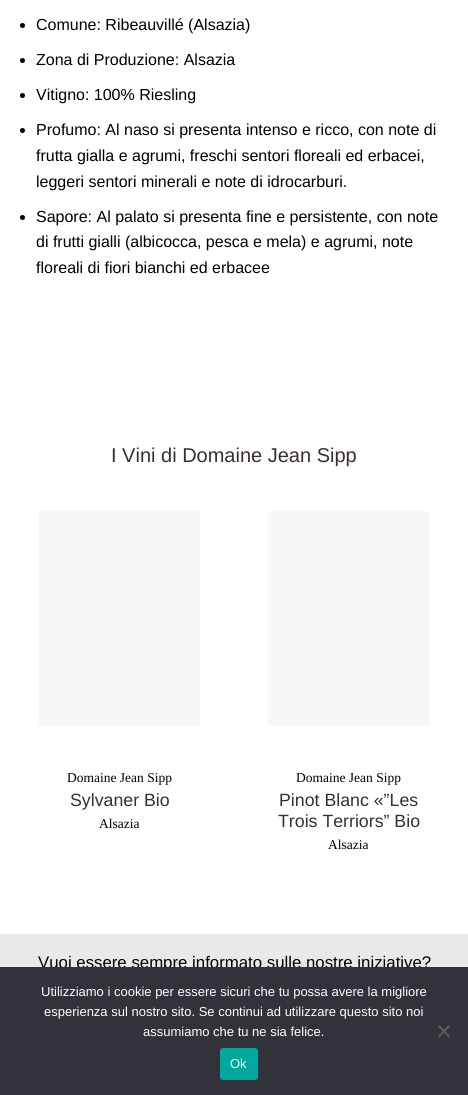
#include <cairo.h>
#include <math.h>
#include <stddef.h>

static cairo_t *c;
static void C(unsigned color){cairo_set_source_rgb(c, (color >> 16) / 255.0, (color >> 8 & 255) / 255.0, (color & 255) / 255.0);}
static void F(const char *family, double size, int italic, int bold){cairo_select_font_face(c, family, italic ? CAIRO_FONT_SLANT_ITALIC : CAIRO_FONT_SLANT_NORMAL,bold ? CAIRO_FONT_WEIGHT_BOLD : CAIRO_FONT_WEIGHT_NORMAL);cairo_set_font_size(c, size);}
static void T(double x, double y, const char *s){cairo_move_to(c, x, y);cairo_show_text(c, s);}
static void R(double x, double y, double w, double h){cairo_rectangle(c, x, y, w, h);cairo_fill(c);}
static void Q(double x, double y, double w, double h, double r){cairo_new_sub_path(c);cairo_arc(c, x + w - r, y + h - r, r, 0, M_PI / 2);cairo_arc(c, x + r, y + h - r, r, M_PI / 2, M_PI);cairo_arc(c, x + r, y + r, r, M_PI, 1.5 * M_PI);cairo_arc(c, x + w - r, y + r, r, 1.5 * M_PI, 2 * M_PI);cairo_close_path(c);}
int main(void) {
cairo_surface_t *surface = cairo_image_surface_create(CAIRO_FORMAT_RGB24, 468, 1095);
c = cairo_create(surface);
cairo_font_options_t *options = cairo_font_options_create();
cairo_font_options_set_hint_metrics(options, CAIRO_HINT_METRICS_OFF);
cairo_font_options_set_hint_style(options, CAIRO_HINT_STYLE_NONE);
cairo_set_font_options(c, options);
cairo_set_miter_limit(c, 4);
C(0xffffff);
cairo_paint(c);
C(0x000000);
cairo_arc(c,22.5,25.5,2.5,0,2 * M_PI);
cairo_fill(c);
F("Liberation Sans",16,0,0);
T(36,30,"Comune: Ribeauvillé (Alsazia)");
cairo_new_path(c);
cairo_arc(c,22.5,60.5,2.5,0,2 * M_PI);
cairo_fill(c);
T(36,65,"Zona di Produzione: Alsazia");
cairo_new_path(c);
cairo_arc(c,22.5,95.5,2.5,0,2 * M_PI);
cairo_fill(c);
T(36,100,"Vitigno: 100% Riesling");
cairo_new_path(c);
cairo_arc(c,22.5,130.5,2.5,0,2 * M_PI);
cairo_fill(c);
T(36,135,"Profumo: Al naso si presenta intenso e ricco, con note di");
T(36,161,"frutta gialla e agrumi, freschi sentori floreali ed erbacei,");
T(36,187,"leggeri sentori minerali e note di idrocarburi.");
cairo_new_path(c);
cairo_arc(c,22.5,217.5,2.5,0,2 * M_PI);
cairo_fill(c);
T(36,222,"Sapore: Al palato si presenta fine e persistente, con note");
T(36,247,"di frutti gialli (albicocca, pesca e mela) e agrumi, note");
T(36,273,"floreali di fiori bianchi ed erbacee");
F("Liberation Sans",20,0,0);
C(0x39302c);
T(111,462,"I Vini di Domaine Jean Sipp");
C(0xf7f7f7);
R(39,511,161,215);
F("Liberation Serif",13.5,0,0);
C(0x000000);
T(67,782,"Domaine Jean Sipp");
F("Liberation Sans",17.75,0,0);
C(0x39302c);
T(70,806,"Sylvaner Bio");
F("Liberation Serif",13.5,0,0);
C(0x000000);
T(99,828,"Alsazia");
C(0xf7f7f7);
R(268,511,161,215);
C(0x000000);
T(296,782,"Domaine Jean Sipp");
F("Liberation Sans",17.75,0,0);
C(0x39302c);
T(279,806,"Pinot Blanc «”Les");
T(278,827,"Trois Terriors” Bio");
F("Liberation Serif",13.5,0,0);
C(0x000000);
T(328,849,"Alsazia");
C(0xeae8e8);
R(0,934,468,33);
F("Liberation Sans",16.8,0,0);
C(0x000000);
T(38,968,"Vuoi essere sempre informato sulle nostre iniziative?");
C(0x32323a);
R(0,967,468,128);
F("Liberation Sans",13,0,0);
C(0xffffff);
T(41,996,"Utilizziamo i cookie per essere sicuri che tu possa avere la migliore");
T(44,1016,"esperienza sul nostro sito. Se continui ad utilizzare questo sito noi");
T(143,1036,"assumiamo che tu ne sia felice.");
C(0x59595d);
cairo_new_path(c);
cairo_move_to(c,448.5,1025);
cairo_line_to(c,450,1026.5);
cairo_line_to(c,439.5,1037.5);
cairo_line_to(c,438,1036);
cairo_close_path(c);
cairo_fill(c);
cairo_new_path(c);
cairo_move_to(c,438,1026.5);
cairo_line_to(c,439.5,1025);
cairo_line_to(c,450,1036);
cairo_line_to(c,448.5,1037.5);
cairo_close_path(c);
cairo_fill(c);
C(0x00a99d);
Q(220,1048,38,32,3);
cairo_fill(c);
C(0xffffff);
T(230,1068,"Ok");
cairo_surface_write_to_png(surface, "o.png");
cairo_font_options_destroy(options);
cairo_destroy(c);
cairo_surface_destroy(surface);
return 0;
}
